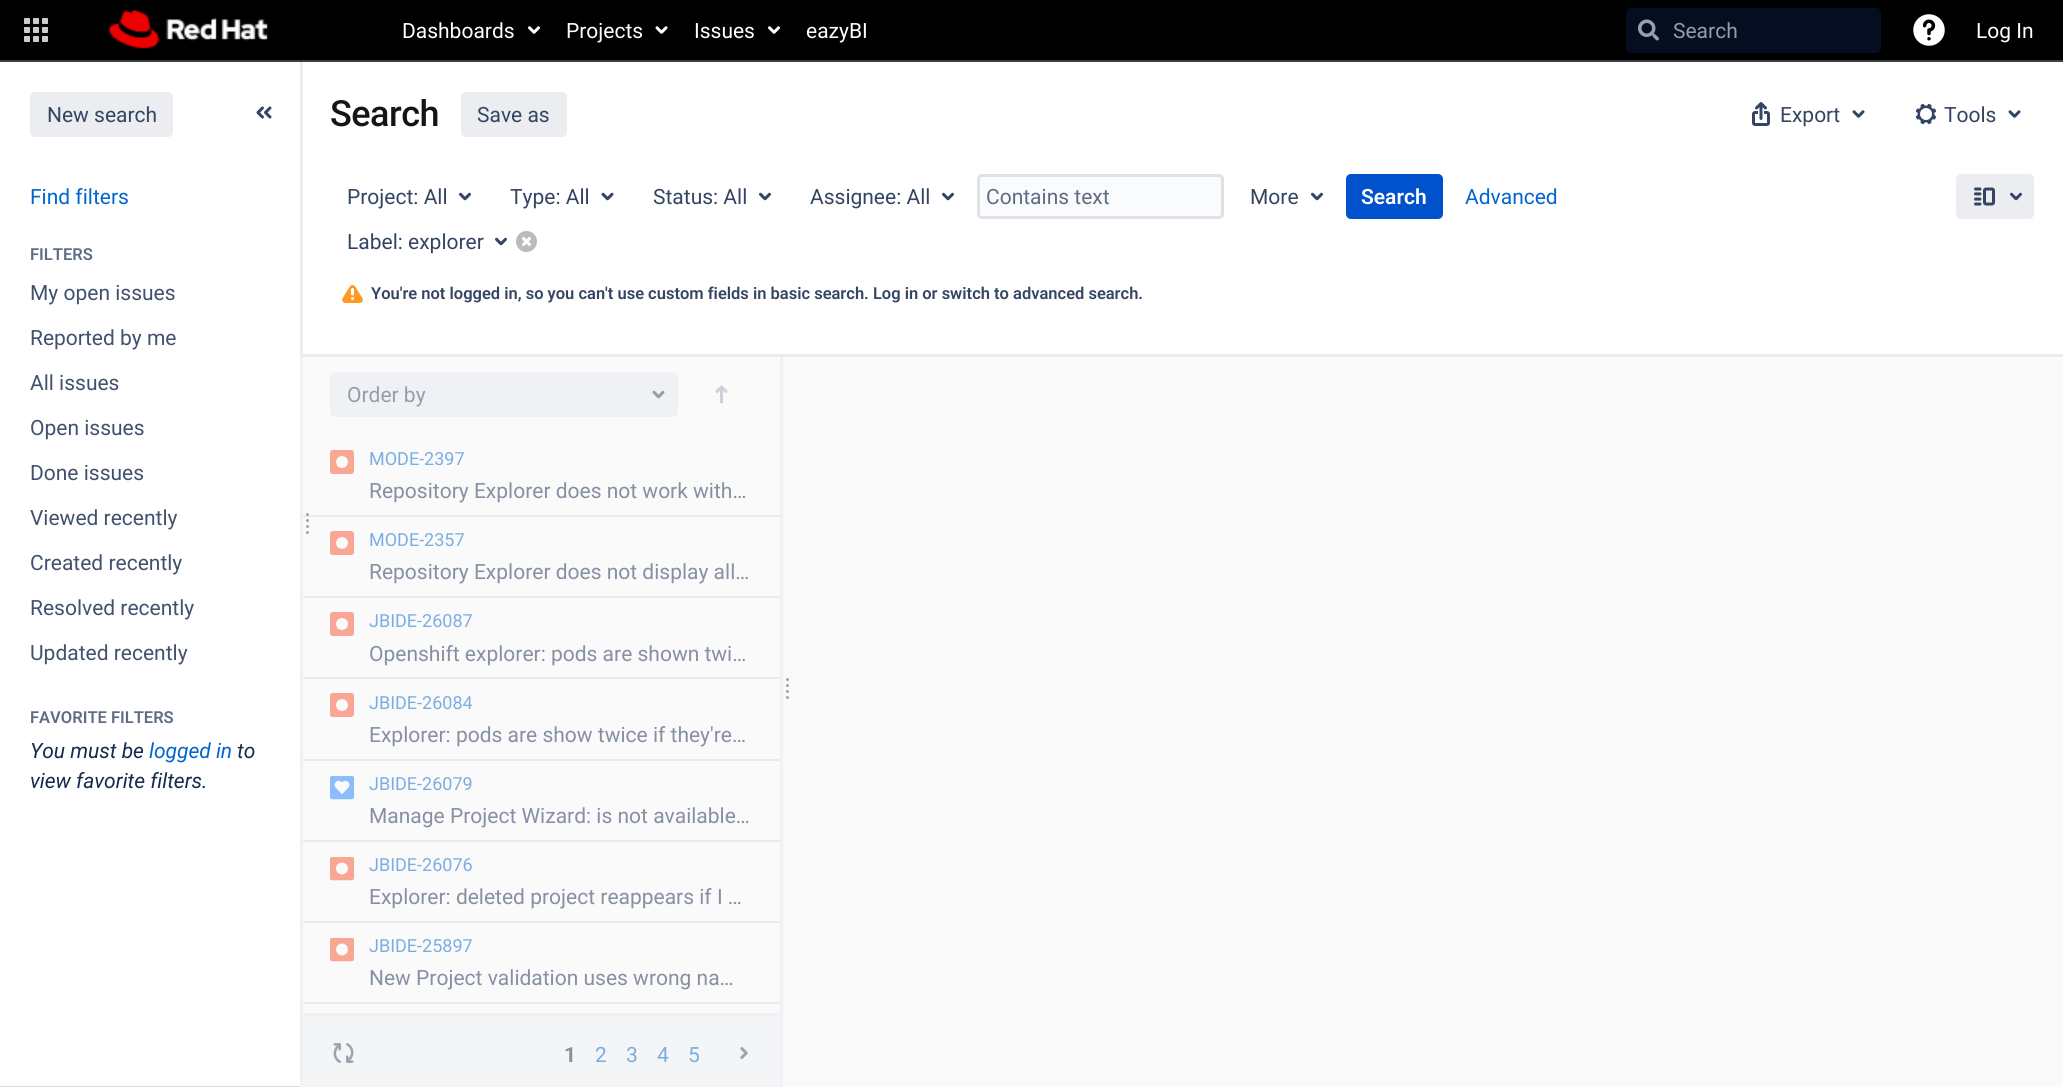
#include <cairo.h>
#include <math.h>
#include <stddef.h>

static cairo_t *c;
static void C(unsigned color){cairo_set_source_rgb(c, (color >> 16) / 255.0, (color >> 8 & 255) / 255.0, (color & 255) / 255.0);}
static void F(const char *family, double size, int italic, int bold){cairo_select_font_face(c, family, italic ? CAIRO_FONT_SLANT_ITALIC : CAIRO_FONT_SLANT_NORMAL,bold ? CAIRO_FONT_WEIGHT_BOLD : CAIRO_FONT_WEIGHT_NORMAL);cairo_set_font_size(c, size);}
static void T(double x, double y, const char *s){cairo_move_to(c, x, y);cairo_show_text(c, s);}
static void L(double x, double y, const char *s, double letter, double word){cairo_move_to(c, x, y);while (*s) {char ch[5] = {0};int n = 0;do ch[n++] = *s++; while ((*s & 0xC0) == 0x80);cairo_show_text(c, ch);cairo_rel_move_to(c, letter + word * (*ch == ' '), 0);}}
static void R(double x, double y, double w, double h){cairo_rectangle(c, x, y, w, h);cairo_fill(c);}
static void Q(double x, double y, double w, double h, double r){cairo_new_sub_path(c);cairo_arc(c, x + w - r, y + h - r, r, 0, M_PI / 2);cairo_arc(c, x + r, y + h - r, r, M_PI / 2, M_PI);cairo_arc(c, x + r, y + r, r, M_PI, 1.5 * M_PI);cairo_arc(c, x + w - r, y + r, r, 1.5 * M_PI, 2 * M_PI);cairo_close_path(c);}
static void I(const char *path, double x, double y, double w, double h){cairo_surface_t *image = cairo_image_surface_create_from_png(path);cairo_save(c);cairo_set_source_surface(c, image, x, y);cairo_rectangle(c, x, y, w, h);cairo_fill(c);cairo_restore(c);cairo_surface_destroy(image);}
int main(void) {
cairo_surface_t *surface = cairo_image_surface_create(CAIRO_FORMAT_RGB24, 2063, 1087);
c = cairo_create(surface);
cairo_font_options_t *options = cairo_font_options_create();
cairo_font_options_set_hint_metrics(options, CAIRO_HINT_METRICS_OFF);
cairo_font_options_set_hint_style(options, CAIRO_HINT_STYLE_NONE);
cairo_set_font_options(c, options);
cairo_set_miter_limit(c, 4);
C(0xffffff);
cairo_paint(c);
C(0x000000);
R(0,0,2063,60);
C(0x3c3f42);
R(0,60,2063,2);
I("1.png",24,18,24,24);
I("2.png",109,10,159,39);
F("Roboto",21,0,0);
C(0xffffff);
T(402,38,"Dashboards");
I("3.png",528,26,12,8);
T(566,38,"Projects");
I("4.png",655,26,13,8);
T(694,38,"Issues");
I("3.png",768,26,12,8);
T(806,38,"eazyBI");
C(0x040e20);
Q(1626,8,255,45,5);
cairo_fill(c);
I("5.png",1638,19,21,22);
C(0x949dad);
T(1673,38,"Search");
I("6.png",1913,14,32,32);
C(0xffffff);
T(1976,38,"Log In");
C(0xfafafb);
R(303,357,1760,730);
C(0xdddddd);
R(0,1086,300,1);
C(0xebedf0);
Q(30,92,143,45,5);
cairo_fill(c);
C(0x344563);
T(47,122,"New search");
I("7.png",256,106,16,13);
C(0x0066cc);
T(30,204,"Find filters");
F("Roboto SemiBold",16.5,0,0);
C(0x5e6c84);
T(30,260,"FILTERS");
F("Roboto",21,0,0);
C(0x42526e);
T(30,300,"My open issues");
T(30,345,"Reported by me");
T(30,390,"All issues");
T(30,435,"Open issues");
T(30,480,"Done issues");
T(30,525,"Viewed recently");
T(30,570,"Created recently");
T(30,615,"Resolved recently");
T(30,660,"Updated recently");
F("Roboto SemiBold",16.5,0,0);
C(0x5e6c84);
T(30,723,"FAVORITE FILTERS");
F("Roboto",21,1,0);
C(0x172b4d);
T(30,758,"You must be");
C(0x0066cc);
T(149,758,"logged in");
C(0x172b4d);
T(237,758,"to");
T(30,788,"view favorite filters.");
C(0xebecf0);
R(300,354,1763,3);
R(300,62,3,295);
C(0xeaebee);
R(300,515,480,2);
R(300,596,480,2);
R(300,677,480,2);
R(300,759,480,2);
R(300,840,480,2);
R(300,921,480,2);
R(300,1002,480,2);
C(0xf0f1f4);
R(300,1013,480,3);
C(0xf4f5f7);
R(300,1016,480,71);
C(0xf0f1f4);
R(300,357,3,729);
C(0x9ba4b3);
cairo_new_path(c);
cairo_arc(c,307.5,514.5,1.5,0,2 * M_PI);
cairo_fill(c);
cairo_arc(c,307.5,520.5,1.5,0,2 * M_PI);
cairo_fill(c);
cairo_arc(c,307.5,526.5,1.5,0,2 * M_PI);
cairo_fill(c);
cairo_arc(c,307.5,532.5,1.5,0,2 * M_PI);
cairo_fill(c);
F("Roboto Medium",36,0,0);
C(0x151515);
L(330,126,"Search",-.5,0);
C(0xebedf0);
Q(461,92,106,45,5);
cairo_fill(c);
F("Roboto",21,0,0);
C(0x344563);
T(477,122,"Save as");
I("8.png",1752,102,18,24);
T(1780,122,"Export");
I("9.png",1852,110,13,8);
I("10.png",1915,103,22,22);
T(1944,122,"Tools");
I("9.png",2008,110,13,8);
T(347,204,"Project: All");
I("11.png",459,192,12,9);
T(510,204,"Type: All");
I("12.png",601,192,13,9);
T(653,204,"Status: All");
I("11.png",759,192,12,9);
T(810,204,"Assignee: All");
I("11.png",942,192,12,9);
C(0xfafbfc);
Q(978.5,175.5,244,42,3.5);
cairo_fill_preserve(c);
C(0xdfe1e6);
cairo_set_line_width(c,3);
cairo_stroke(c);
C(0x5e6c84);
T(986,204,"Contains text");
C(0x344563);
T(1250,204,"More");
I("11.png",1311,192,12,9);
C(0x0052cc);
Q(1346,174,97,45,5);
cairo_fill(c);
F("Roboto SemiBold",21,0,0);
C(0xffffff);
T(1361,204,"Search");
F("Roboto",21,0,0);
C(0x344563);
T(347,249,"Label: explorer");
I("11.png",495,237,12,9);
I("13.png",516,231,21,21);
C(0x0066cc);
T(1465,204,"Advanced");
C(0xebedf0);
Q(1956,174,78,45,5);
cairo_fill(c);
I("14.png",1974,187,21,19);
I("15.png",2010,192,12,9);
I("16.png",342,285,21,18);
F("Roboto SemiBold",16.5,0,0);
C(0x344563);
T(371,299,"You're not logged in, so you can't use custom fields in basic search. Log in or switch to advanced search.");
C(0xf0f1f4);
Q(330,372,348,45,5);
cairo_fill(c);
F("Roboto",21,0,0);
C(0x949dad);
T(347,402,"Order by");
I("17.png",652,390,13,9);
I("18.png",715,385,13,19);
I("19.png",330,450,24,24);
F("Roboto",18,0,0);
C(0x7aaee2);
T(369,465,"MODE-2397");
F("Roboto",21,0,0);
C(0x8690a2);
T(369,498,"Repository Explorer does not work with…");
I("19.png",330,531,24,24);
F("Roboto",18,0,0);
C(0x7aaee2);
T(369,546,"MODE-2357");
F("Roboto",21,0,0);
C(0x8690a2);
T(369,579,"Repository Explorer does not display all…");
I("19.png",330,612,24,24);
F("Roboto",18,0,0);
C(0x7aaee2);
T(369,627,"JBIDE-26087");
F("Roboto",21,0,0);
C(0x8690a2);
T(369,661,"Openshift explorer: pods are shown twi…");
I("19.png",330,693,24,24);
F("Roboto",18,0,0);
C(0x7aaee2);
T(369,709,"JBIDE-26084");
F("Roboto",21,0,0);
C(0x8690a2);
T(369,742,"Explorer: pods are show twice if they're…");
I("20.png",330,776,24,24);
F("Roboto",18,0,0);
C(0x7aaee2);
T(369,790,"JBIDE-26079");
F("Roboto",21,0,0);
C(0x8690a2);
T(369,823,"Manage Project Wizard: is not available…");
I("21.png",330,857,24,24);
F("Roboto",18,0,0);
C(0x7aaee2);
T(369,871,"JBIDE-26076");
F("Roboto",21,0,0);
C(0x8690a2);
T(369,904,"Explorer: deleted project reappears if I …");
I("21.png",330,938,24,24);
F("Roboto",18,0,0);
C(0x7aaee2);
T(369,952,"JBIDE-25897");
F("Roboto",21,0,0);
C(0x8690a2);
T(369,985,"New Project validation uses wrong na…");
I("22.png",333,1043,21,20);
F("Roboto",21,0,1);
T(564,1062,"1");
F("Roboto",21,0,0);
C(0x7aaee2);
T(595,1062,"2");
T(626,1062,"3");
T(657,1062,"4");
T(688,1062,"5");
I("23.png",740,1047,8,12);
C(0xf0f1f4);
R(780,357,3,730);
C(0x9ba4b3);
cairo_arc(c,787.5,679.5,1.5,0,2 * M_PI);
cairo_fill(c);
cairo_arc(c,787.5,685.5,1.5,0,2 * M_PI);
cairo_fill(c);
cairo_arc(c,787.5,691.5,1.5,0,2 * M_PI);
cairo_fill(c);
cairo_arc(c,787.5,697.5,1.5,0,2 * M_PI);
cairo_fill(c);
cairo_surface_write_to_png(surface, "o.png");
cairo_font_options_destroy(options);
cairo_destroy(c);
cairo_surface_destroy(surface);
return 0;
}
